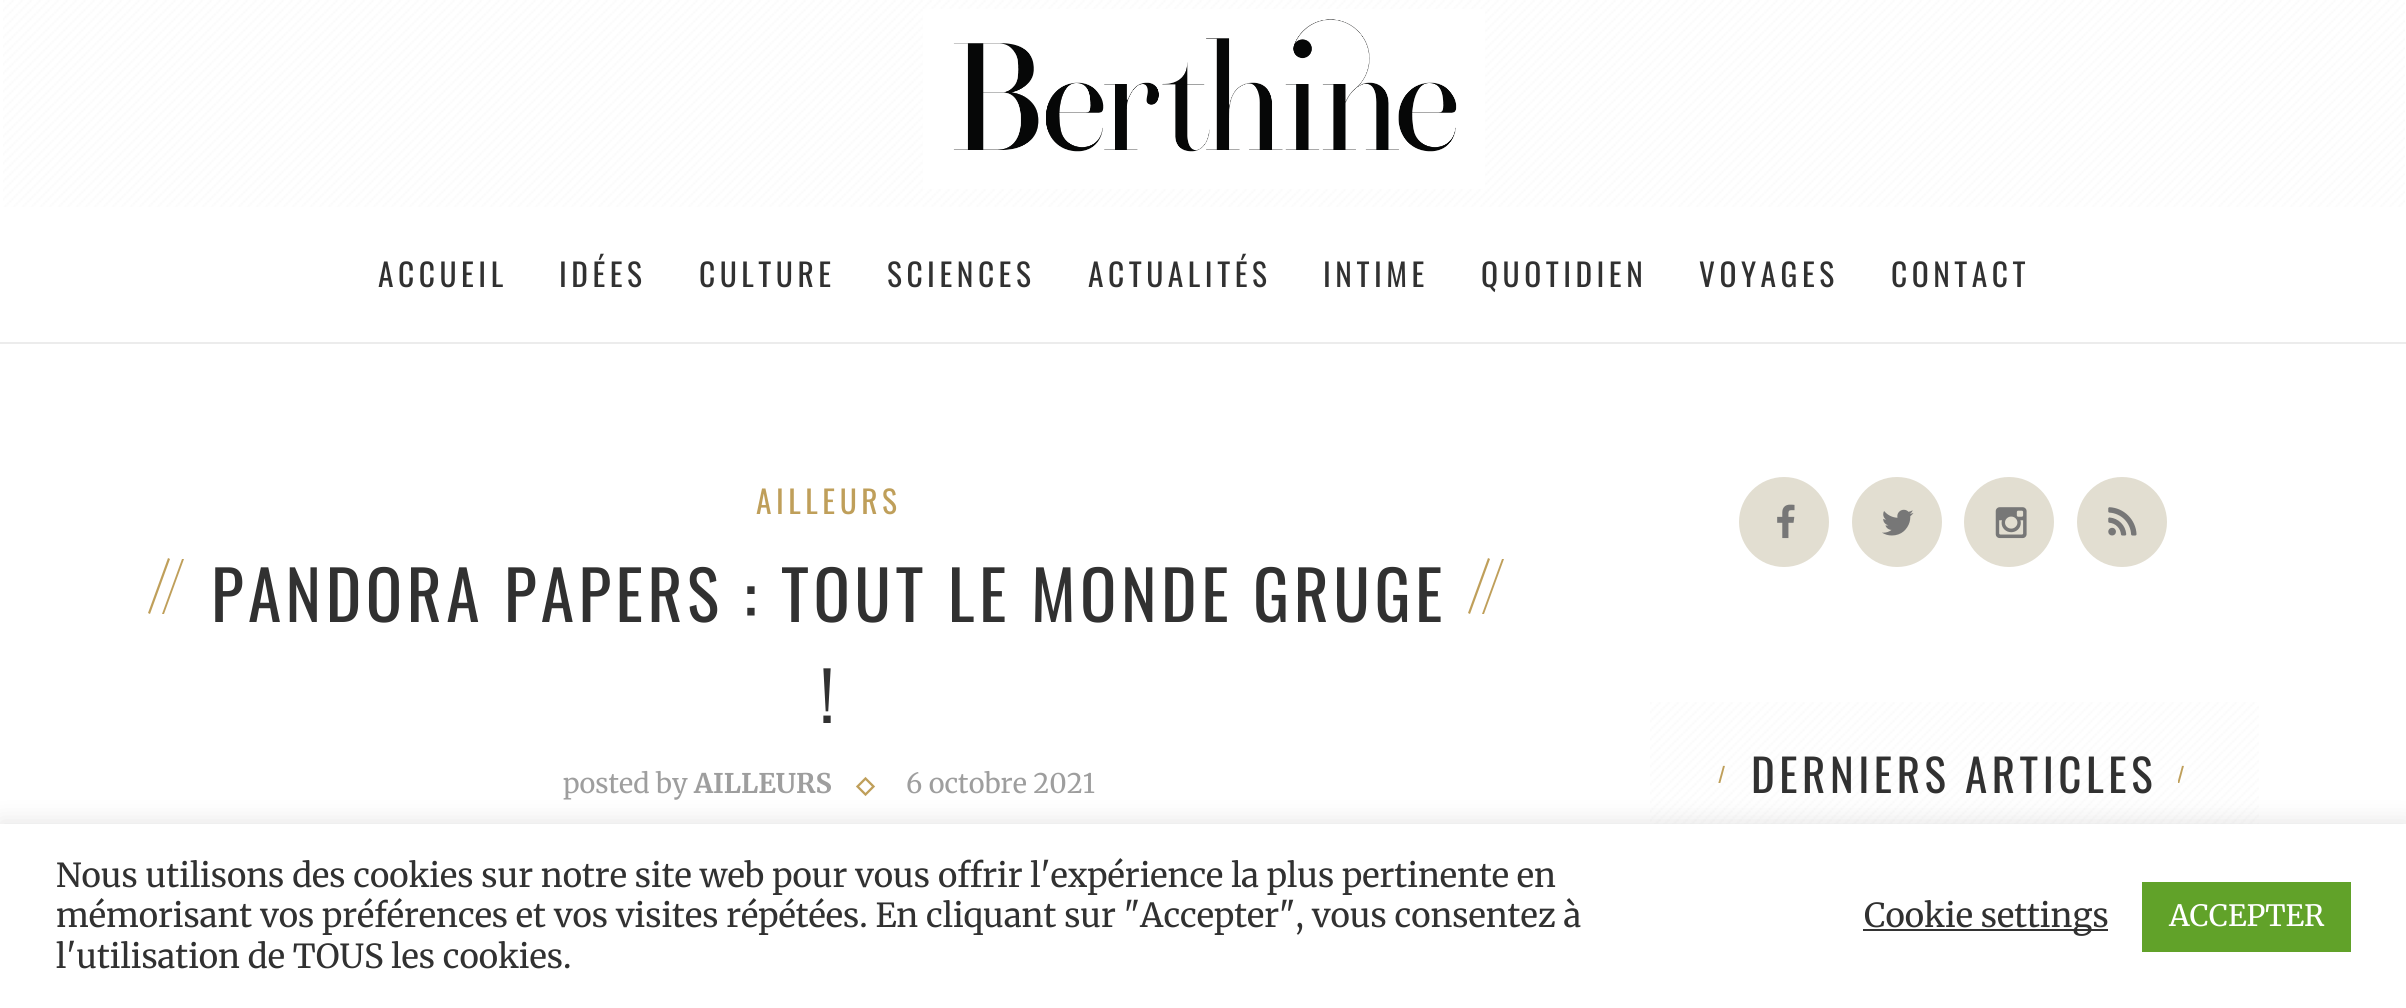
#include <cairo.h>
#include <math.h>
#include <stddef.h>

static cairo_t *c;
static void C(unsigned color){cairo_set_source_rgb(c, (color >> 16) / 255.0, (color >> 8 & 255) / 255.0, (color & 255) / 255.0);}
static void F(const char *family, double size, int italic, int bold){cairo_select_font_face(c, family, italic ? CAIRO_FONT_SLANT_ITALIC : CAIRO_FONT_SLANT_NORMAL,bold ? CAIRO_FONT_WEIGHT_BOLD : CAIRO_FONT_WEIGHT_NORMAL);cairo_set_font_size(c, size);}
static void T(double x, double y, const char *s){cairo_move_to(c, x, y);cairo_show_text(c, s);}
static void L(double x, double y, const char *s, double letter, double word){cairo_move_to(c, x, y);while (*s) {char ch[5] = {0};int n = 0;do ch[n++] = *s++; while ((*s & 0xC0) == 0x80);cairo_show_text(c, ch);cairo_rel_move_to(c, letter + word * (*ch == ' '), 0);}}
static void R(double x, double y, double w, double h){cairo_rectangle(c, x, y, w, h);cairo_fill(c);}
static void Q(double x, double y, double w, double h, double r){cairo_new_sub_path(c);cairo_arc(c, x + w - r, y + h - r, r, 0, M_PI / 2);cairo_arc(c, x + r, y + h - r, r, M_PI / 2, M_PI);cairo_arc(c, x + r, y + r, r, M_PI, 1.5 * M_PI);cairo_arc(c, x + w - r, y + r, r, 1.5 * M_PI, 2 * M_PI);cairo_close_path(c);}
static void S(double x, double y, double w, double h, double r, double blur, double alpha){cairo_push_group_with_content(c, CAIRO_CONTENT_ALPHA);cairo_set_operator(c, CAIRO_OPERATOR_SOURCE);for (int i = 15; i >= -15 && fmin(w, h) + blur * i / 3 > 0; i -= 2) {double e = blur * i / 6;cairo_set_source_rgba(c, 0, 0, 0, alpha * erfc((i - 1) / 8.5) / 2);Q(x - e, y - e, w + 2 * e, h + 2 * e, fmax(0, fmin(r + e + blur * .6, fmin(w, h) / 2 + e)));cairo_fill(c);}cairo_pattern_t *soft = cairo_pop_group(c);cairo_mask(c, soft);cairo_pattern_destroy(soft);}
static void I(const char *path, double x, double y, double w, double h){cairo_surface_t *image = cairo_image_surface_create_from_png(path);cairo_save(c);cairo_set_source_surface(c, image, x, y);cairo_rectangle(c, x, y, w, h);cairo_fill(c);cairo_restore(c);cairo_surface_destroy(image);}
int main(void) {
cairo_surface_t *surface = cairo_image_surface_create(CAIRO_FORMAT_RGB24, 2406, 1008);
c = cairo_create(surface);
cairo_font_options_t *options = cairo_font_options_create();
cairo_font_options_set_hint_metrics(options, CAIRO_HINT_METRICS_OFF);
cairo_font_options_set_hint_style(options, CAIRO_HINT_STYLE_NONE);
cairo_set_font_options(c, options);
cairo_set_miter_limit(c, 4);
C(0xffffff);
cairo_paint(c);
I("1.png",3,0,2402,207);
I("2.png",923,9,562,180);
C(0xececec);
cairo_new_path(c);
cairo_move_to(c,0,342);
cairo_line_to(c,0,344);
cairo_line_to(c,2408,344);
cairo_line_to(c,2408,209);
cairo_line_to(c,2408,342);
cairo_close_path(c);
cairo_fill(c);
F("Oswald",31.5,0,0);
C(0x313131);
L(378,287,"ACCUEIL",4.5,0);
L(559,287,"IDÉES",4.5,0);
L(699,287,"CULTURE",4.5,0);
L(887,287,"SCIENCES",4.5,0);
L(1088,287,"ACTUALITÉS",4.5,0);
L(1323,287,"INTIME",4.5,0);
L(1481,287,"QUOTIDIEN",4.5,0);
L(1699,287,"VOYAGES",4.5,0);
L(1891,287,"CONTACT",4.5,0);
C(0xbf9f5a);
L(756,514,"AILLEURS",4.5,0);
cairo_new_path(c);
cairo_move_to(c,182,559);
cairo_line_to(c,184,559);
cairo_line_to(c,164,614);
cairo_line_to(c,162,614);
cairo_close_path(c);
cairo_fill(c);
cairo_new_path(c);
cairo_move_to(c,168,558);
cairo_line_to(c,170,559);
cairo_line_to(c,150,614);
cairo_line_to(c,148,613);
cairo_close_path(c);
cairo_fill(c);
F("Oswald",67.5,0,0);
C(0x313131);
L(211,622,"PANDORA PAPERS : TOUT LE MONDE GRUGE",4.5,0);
C(0xbf9f5a);
cairo_new_path(c);
cairo_move_to(c,1502,559);
cairo_line_to(c,1504,559);
cairo_line_to(c,1484,614);
cairo_line_to(c,1482,614);
cairo_close_path(c);
cairo_fill(c);
cairo_new_path(c);
cairo_move_to(c,1488,558);
cairo_line_to(c,1490,559);
cairo_line_to(c,1470,614);
cairo_line_to(c,1468,613);
cairo_close_path(c);
cairo_fill(c);
C(0x313131);
L(820,723,"!",4.5,0);
F("Merriweather",27,0,0);
C(0x9e9e9e);
T(563,793,"posted by");
F("Merriweather",27,0,1);
T(694,793,"AILLEURS");
cairo_new_path(c);
cairo_move_to(c,865.5,778.5);
cairo_line_to(c,873.5,786.5);
cairo_line_to(c,865.5,794.5);
cairo_line_to(c,857.5,786.5);
cairo_close_path(c);
C(0xbf9f5a);
cairo_set_line_width(c,2.3);
cairo_stroke(c);
F("Merriweather",27,0,0);
C(0x9e9e9e);
T(906,793,"6 octobre 2021");
C(0xe2ded1);
cairo_new_path(c);
cairo_arc(c,1784,522,45,0,2 * M_PI);
cairo_fill(c);
I("3.png",1777,504,18,35);
cairo_arc(c,1897,522,45,0,2 * M_PI);
cairo_fill(c);
I("4.png",1882,509,32,27);
cairo_arc(c,2009,522,45,0,2 * M_PI);
cairo_fill(c);
I("5.png",1995,507,32,32);
cairo_arc(c,2122,522,45,0,2 * M_PI);
cairo_fill(c);
I("6.png",2108,507,29,29);
I("7.png",1650,702,609,122);
cairo_save(c);
cairo_rectangle(c,1715,765,15,18);
cairo_clip(c);
F("Liberation Sans",25,0,0);
C(0xbf9f5a);
L(1718,784,"/",7,0);
cairo_restore(c);
F("Oswald",45,0,0);
C(0x313131);
L(1751,793,"DERNIERS ARTICLES",4.5,0);
cairo_save(c);
cairo_rectangle(c,2178,765,16,18);
cairo_clip(c);
F("Liberation Sans",25,0,0);
C(0xbf9f5a);
L(2177,784,"/",7,0);
cairo_restore(c);
C(0xacabab);
S(0,821,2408,185,0,11,.3);
C(0xffffff);
R(0,824,2406,184);
F("Merriweather",33,0,0);
C(0x313131);
T(56,887,"Nous utilisons des cookies sur notre site web pour vous offrir l'expérience la plus pertinente en");
T(56,927,"mémorisant vos préférences et vos visites répétées. En cliquant sur \"Accepter\", vous consentez à");
T(56,968,"l'utilisation de TOUS les cookies.");
C(0x333333);
R(1863,929,245,2);
C(0x313131);
T(1864,927,"Cookie settings");
C(0x61a229);
R(2142,882,209,70);
F("Merriweather",29.25,0,0);
C(0xffffff);
T(2169,926,"ACCEPTER");
cairo_surface_write_to_png(surface, "o.png");
cairo_font_options_destroy(options);
cairo_destroy(c);
cairo_surface_destroy(surface);
return 0;
}
